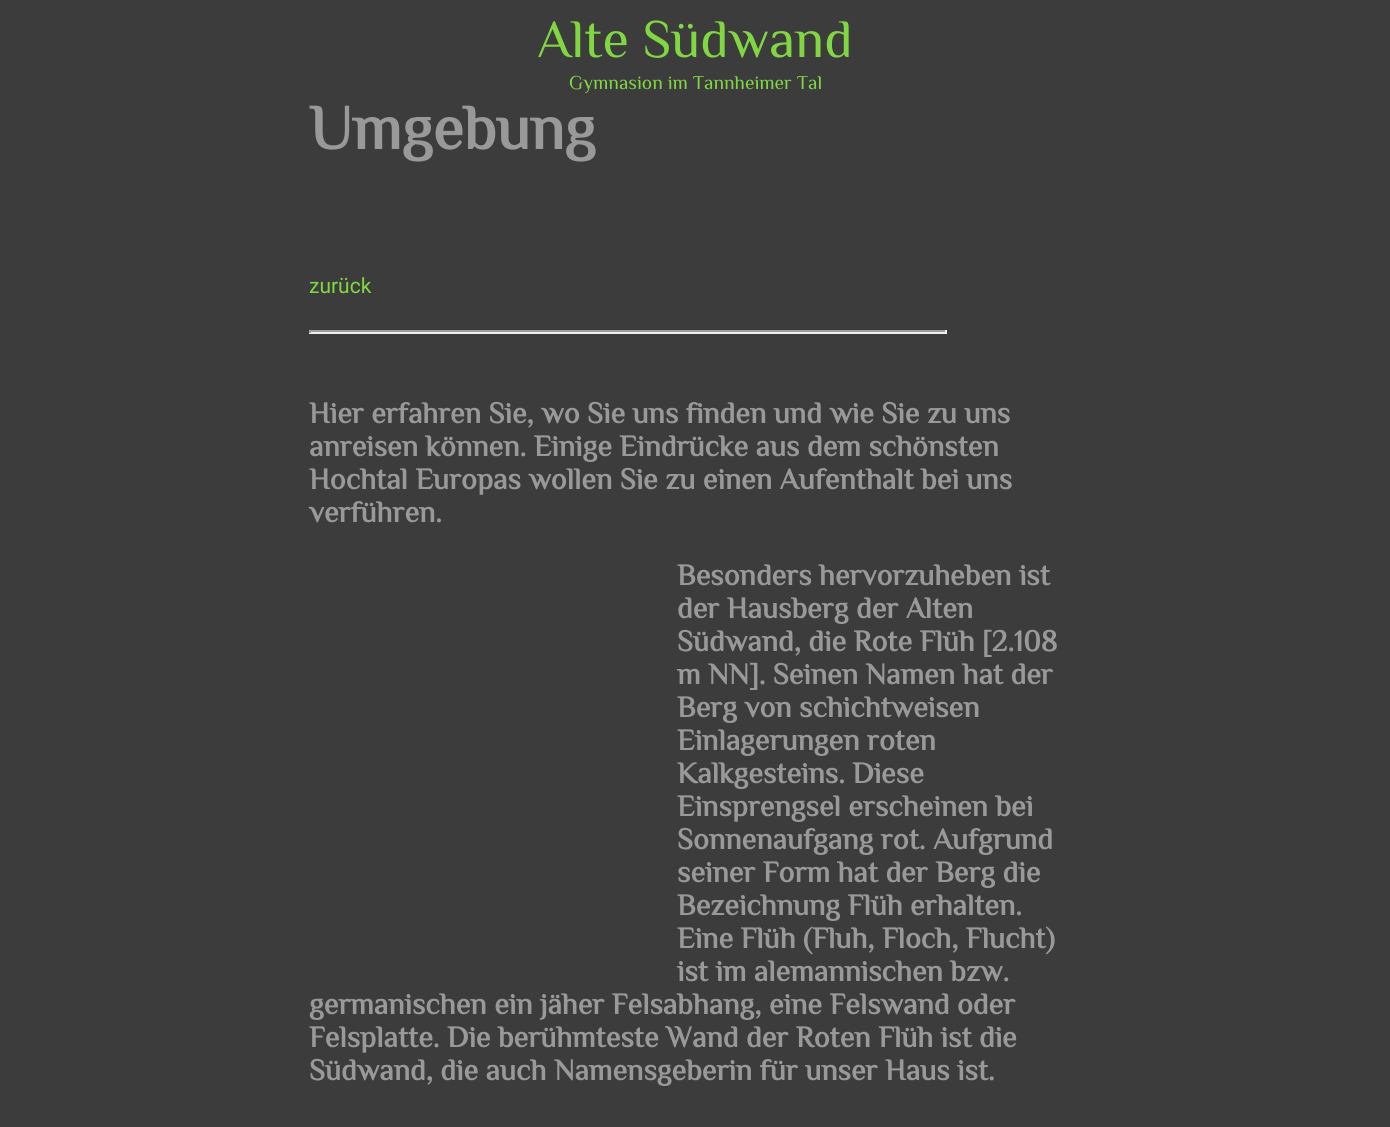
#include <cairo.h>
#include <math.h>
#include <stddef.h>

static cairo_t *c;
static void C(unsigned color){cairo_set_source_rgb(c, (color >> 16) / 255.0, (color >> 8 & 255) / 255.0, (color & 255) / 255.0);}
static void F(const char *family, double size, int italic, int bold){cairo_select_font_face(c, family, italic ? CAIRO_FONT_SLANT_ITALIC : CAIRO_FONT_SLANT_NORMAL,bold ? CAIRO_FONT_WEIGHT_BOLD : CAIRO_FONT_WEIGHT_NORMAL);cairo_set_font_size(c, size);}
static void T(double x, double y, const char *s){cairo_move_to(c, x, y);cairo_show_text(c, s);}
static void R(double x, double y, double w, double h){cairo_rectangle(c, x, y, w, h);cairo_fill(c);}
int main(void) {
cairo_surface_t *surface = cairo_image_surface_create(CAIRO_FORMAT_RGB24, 1390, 1127);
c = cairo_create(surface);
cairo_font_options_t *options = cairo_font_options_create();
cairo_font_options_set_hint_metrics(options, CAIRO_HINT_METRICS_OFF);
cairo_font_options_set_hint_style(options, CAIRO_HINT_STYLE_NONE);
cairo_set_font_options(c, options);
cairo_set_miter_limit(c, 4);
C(0x3c3c3c);
cairo_paint(c);
F("Philosopher",54,0,0);
C(0x81d742);
T(537,57,"Alte Südwand");
F("Philosopher",19.5,0,0);
T(569,89,"Gymnasion im Tannheimer Tal");
F("Philosopher",63,0,1);
C(0x999999);
T(309,149,"Umgebung");
F("Roboto",21,0,0);
C(0x81d742);
T(309,293,"zurück");
C(0x9f9f9f);
R(309,330,638,2);
C(0xeeeeee);
R(945,330,2,3);
R(309,332,638,2);
C(0x9f9f9f);
R(309,330,2,3);
F("Philosopher",30,0,1);
C(0x999999);
T(309,423,"Hier erfahren Sie, wo Sie uns finden und wie Sie zu uns");
T(309,456,"anreisen können. Einige Eindrücke aus dem schönsten");
T(309,489,"Hochtal Europas wollen Sie zu einen Aufenthalt bei uns");
T(309,522,"verführen.");
T(677,585,"Besonders hervorzuheben ist");
T(677,618,"der Hausberg der Alten");
T(677,651,"Südwand, die Rote Flüh [2.108");
T(677,684,"m NN]. Seinen Namen hat der");
T(677,717,"Berg von schichtweisen");
T(677,750,"Einlagerungen roten");
T(677,783,"Kalkgesteins. Diese");
T(677,816,"Einsprengsel erscheinen bei");
T(677,849,"Sonnenaufgang rot. Aufgrund");
T(677,882,"seiner Form hat der Berg die");
T(677,915,"Bezeichnung Flüh erhalten.");
T(677,948,"Eine Flüh (Fluh, Floch, Flucht)");
T(677,981,"ist im alemannischen bzw.");
T(309,1014,"germanischen ein jäher Felsabhang, eine Felswand oder");
T(309,1047,"Felsplatte. Die berühmteste Wand der Roten Flüh ist die");
T(309,1080,"Südwand, die auch Namensgeberin für unser Haus ist.");
cairo_surface_write_to_png(surface, "o.png");
cairo_font_options_destroy(options);
cairo_destroy(c);
cairo_surface_destroy(surface);
return 0;
}
